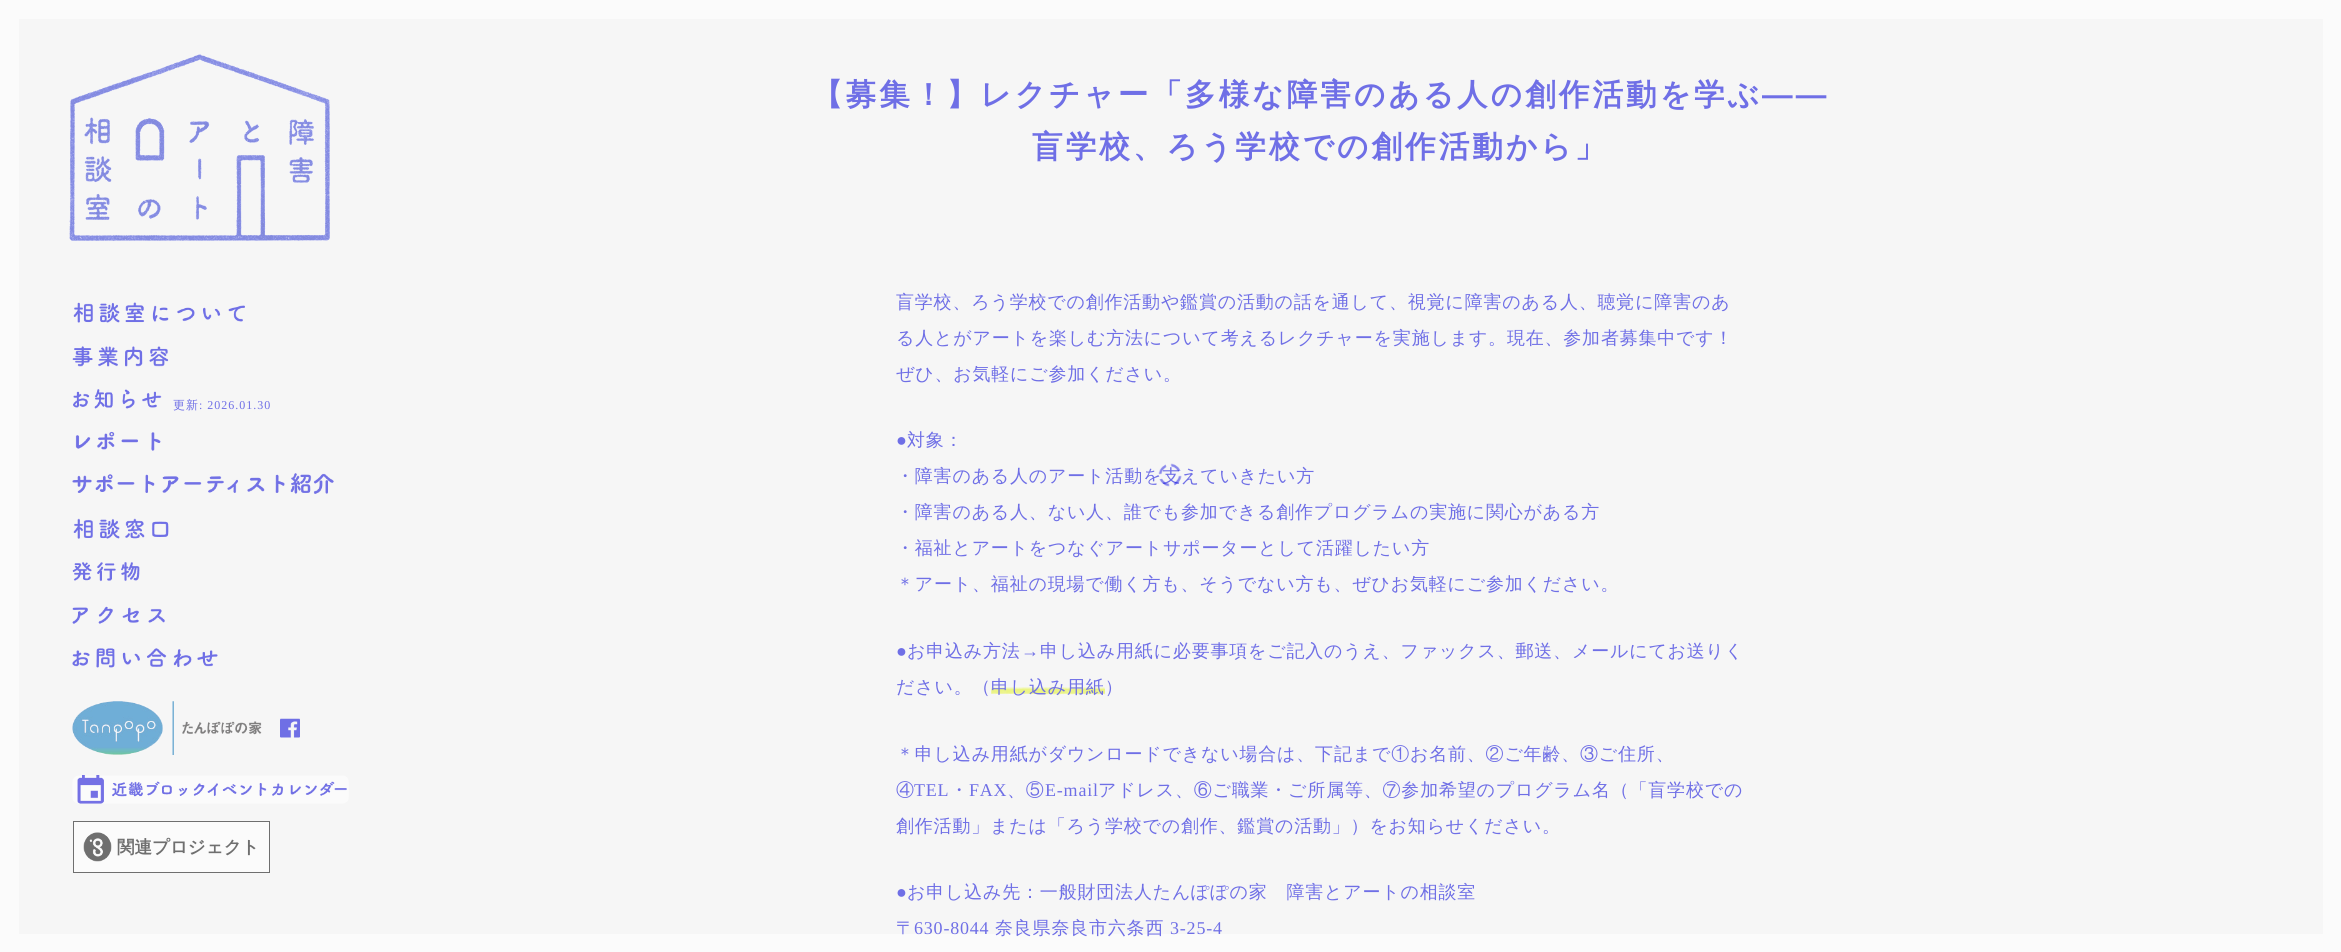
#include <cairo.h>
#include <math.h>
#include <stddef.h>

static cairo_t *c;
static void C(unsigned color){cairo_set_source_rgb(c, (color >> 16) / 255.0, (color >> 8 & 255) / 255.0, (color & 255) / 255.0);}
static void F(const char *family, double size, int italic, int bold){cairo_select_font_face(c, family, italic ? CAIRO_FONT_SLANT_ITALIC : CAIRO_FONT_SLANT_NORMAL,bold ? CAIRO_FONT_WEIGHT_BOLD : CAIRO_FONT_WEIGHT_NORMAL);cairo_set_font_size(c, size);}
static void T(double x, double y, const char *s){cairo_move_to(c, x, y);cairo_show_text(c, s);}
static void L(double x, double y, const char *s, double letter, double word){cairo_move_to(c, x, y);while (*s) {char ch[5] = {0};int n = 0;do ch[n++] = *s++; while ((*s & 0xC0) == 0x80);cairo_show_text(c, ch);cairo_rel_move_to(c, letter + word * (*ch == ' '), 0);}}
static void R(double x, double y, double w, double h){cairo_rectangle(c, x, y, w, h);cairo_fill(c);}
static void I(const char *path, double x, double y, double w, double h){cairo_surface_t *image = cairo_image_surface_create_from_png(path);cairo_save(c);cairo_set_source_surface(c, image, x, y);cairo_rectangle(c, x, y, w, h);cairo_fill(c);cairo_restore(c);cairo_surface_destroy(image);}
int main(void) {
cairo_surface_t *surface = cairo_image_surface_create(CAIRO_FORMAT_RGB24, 2341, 952);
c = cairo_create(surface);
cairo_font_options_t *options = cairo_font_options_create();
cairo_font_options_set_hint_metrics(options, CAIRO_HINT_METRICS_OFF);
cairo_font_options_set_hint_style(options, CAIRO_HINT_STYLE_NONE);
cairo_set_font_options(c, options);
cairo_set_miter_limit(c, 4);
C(0xf6f6f6);
cairo_paint(c);
C(0xfbfbfb);
R(0,0,19,952);
R(19,0,2304,19);
R(2323,0,18,934);
R(19,934,2322,18);
I("1.png",69,54,261,187);
I("2.png",73,302,172,21);
I("3.png",72,346,97,21);
I("4.png",73,389,89,20);
F("WenQuanYi Zen Hei Medium",12,0,0);
C(0x6f6fe6);
L(173,409,"更新",1,0);
F("Liberation Serif",12,0,0);
L(199,409,": 2026.01.30",1,0);
I("5.png",75,431,86,20);
I("6.png",72,473,262,21);
I("7.png",73,518,96,21);
I("8.png",72,562,68,20);
I("9.png",72,606,93,18);
I("10.png",72,648,146,20);
I("11.png",72,701,190,54);
I("12.png",280,718,20,20);
I("13.png",72,775,277,29);
C(0xfbfbfb);
cairo_rectangle(c,73.5,821.5,196,51);
cairo_fill_preserve(c);
C(0x6f6f6f);
cairo_set_line_width(c,1);
cairo_stroke(c);
I("14.png",83,832,29,30);
F("WenQuanYi Zen Hei",17.5,0,1);
T(117,853,"関連プロジェクト");
F("WenQuanYi Zen Hei",30.6,0,1);
C(0x6f6fe6);
L(812,105,"【募集！】レクチャー「多様な障害のある人の創作活動を学ぶ",3.05,0);
F("Liberation Sans",30.6,0,1);
L(1762,105,"――",3.05,0);
F("WenQuanYi Zen Hei",30.6,0,1);
L(1032,157,"盲学校、ろう学校での創作活動から」",3.05,0);
F("WenQuanYi Zen Hei Medium",18,0,0);
L(896,308,"盲学校、ろう学校での創作活動や鑑賞の活動の話を通して、視覚に障害のある人、聴覚に障害のあ",.8,0);
L(896,344,"る人とがアートを楽しむ方法について考えるレクチャーを実施します。現在、参加者募集中です！",.8,0);
L(896,380,"ぜひ、お気軽にご参加ください。",.8,0);
F("Liberation Serif",18,0,0);
L(896,446,"●",.8,0);
F("WenQuanYi Zen Hei Medium",18,0,0);
L(907,446,"対象：",.8,0);
L(896,482,"・障害のある人のアート活動を支えていきたい方",.8,0);
L(896,518,"・障害のある人、ない人、誰でも参加できる創作プログラムの実施に関心がある方",.8,0);
L(896,554,"・福祉とアートをつなぐアートサポーターとして活躍したい方",.8,0);
L(896,590,"＊アート、福祉の現場で働く方も、そうでない方も、ぜひお気軽にご参加ください。",.8,0);
F("Liberation Serif",18,0,0);
L(896,657,"●",.8,0);
F("WenQuanYi Zen Hei Medium",18,0,0);
L(907,657,"お申込み方法",.8,0);
F("Liberation Serif",18,0,0);
L(1021,657,"→",.8,0);
F("WenQuanYi Zen Hei Medium",18,0,0);
L(1040,657,"申し込み用紙に必要事項をご記入のうえ、ファックス、郵送、メールにてお送りく",.8,0);
L(896,693,"ださい。（",.8,0);
I("15.png",991,687,114,9);
L(991,693,"申し込み用紙）",.8,0);
L(896,760,"＊申し込み用紙がダウンロードできない場合は、下記まで①お名前、②ご年齢、③ご住所、",.8,0);
L(896,796,"④",.8,0);
F("Liberation Serif",18,0,0);
L(914,796,"TEL",.8,0);
F("WenQuanYi Zen Hei Medium",18,0,0);
L(950,796,"・",.8,0);
F("Liberation Serif",18,0,0);
L(969,796,"FAX",.8,0);
F("WenQuanYi Zen Hei Medium",18,0,0);
L(1007,796,"、⑤",.8,0);
F("Liberation Serif",18,0,0);
L(1045,796,"E-mail",.8,0);
F("WenQuanYi Zen Hei Medium",18,0,0);
L(1098,796,"アドレス、⑥ご職業・ご所属等、⑦参加希望のプログラム名（「盲学校での",.8,0);
L(896,832,"創作活動」または「ろう学校での創作、鑑賞の活動」）をお知らせください。",.8,0);
F("Liberation Serif",18,0,0);
L(896,898,"●",.8,0);
F("WenQuanYi Zen Hei Medium",18,0,0);
L(907,898,"お申し込み先：一般財団法人たんぽぽの家　障害とアートの相談室",.8,0);
L(896,934,"〒",.8,0);
F("Liberation Serif",18,0,0);
L(914,934,"630-8044",.8,0);
F("WenQuanYi Zen Hei Medium",18,0,0);
L(995,934,"奈良県奈良市六条西",.8,0);
F("Liberation Serif",18,0,0);
L(1170,934,"3-25-4",.8,0);
I("16.png",1158,463,24,24);
cairo_surface_write_to_png(surface, "o.png");
cairo_font_options_destroy(options);
cairo_destroy(c);
cairo_surface_destroy(surface);
return 0;
}
